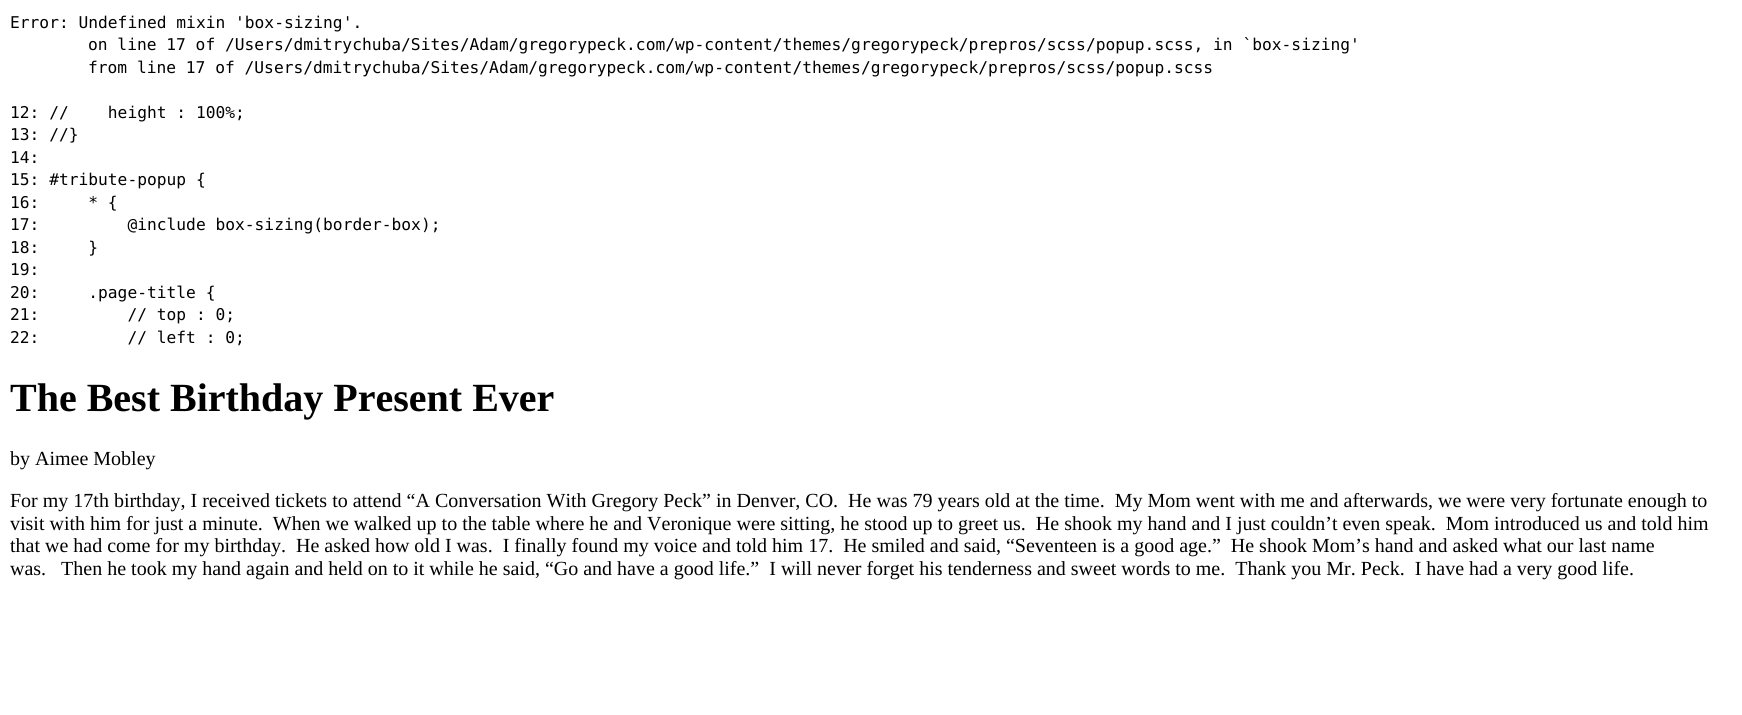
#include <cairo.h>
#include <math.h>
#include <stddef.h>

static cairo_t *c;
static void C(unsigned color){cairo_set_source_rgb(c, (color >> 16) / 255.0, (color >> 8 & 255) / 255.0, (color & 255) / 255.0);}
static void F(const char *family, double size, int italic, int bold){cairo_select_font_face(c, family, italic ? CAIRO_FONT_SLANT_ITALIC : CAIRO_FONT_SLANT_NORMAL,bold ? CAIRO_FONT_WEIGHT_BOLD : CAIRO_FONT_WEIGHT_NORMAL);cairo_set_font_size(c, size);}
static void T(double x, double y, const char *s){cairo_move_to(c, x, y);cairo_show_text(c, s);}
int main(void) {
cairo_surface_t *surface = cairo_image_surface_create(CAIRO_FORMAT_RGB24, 1742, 715);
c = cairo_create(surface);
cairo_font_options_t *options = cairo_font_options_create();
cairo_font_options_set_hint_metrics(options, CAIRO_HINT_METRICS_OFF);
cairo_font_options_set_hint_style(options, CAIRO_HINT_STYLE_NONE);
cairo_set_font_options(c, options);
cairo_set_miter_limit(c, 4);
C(0xffffff);
cairo_paint(c);
F("DejaVu Sans Mono",16.25,0,0);
C(0x000000);
T(10,28,"Error: Undefined mixin 'box-sizing'.");
T(88,50,"on line 17 of /Users/dmitrychuba/Sites/Adam/gregorypeck.com/wp-content/themes/gregorypeck/prepros/scss/popup.scss, in `box-sizing'");
T(88,73,"from line 17 of /Users/dmitrychuba/Sites/Adam/gregorypeck.com/wp-content/themes/gregorypeck/prepros/scss/popup.scss");
T(10,118,"12: //    height : 100%;");
T(10,140,"13: //}");
T(10,163,"14:");
T(10,185,"15: #tribute-popup {");
T(10,208,"16:     * {");
T(10,230,"17:         @include box-sizing(border-box);");
T(10,253,"18:     }");
T(10,275,"19:");
T(10,298,"20:     .page-title {");
T(10,320,"21:         // top : 0;");
T(10,343,"22:         // left : 0;");
F("Liberation Serif",40,0,1);
T(10,411,"The Best Birthday Present Ever");
F("Liberation Serif",20,0,0);
T(10,465,"by Aimee Mobley");
T(10,507,"For my 17th birthday, I received tickets to attend “A Conversation With Gregory Peck” in Denver, CO.  He was 79 years old at the time.  My Mom went with me and afterwards, we were very fortunate enough to");
T(10,530,"visit with him for just a minute.  When we walked up to the table where he and Veronique were sitting, he stood up to greet us.  He shook my hand and I just couldn’t even speak.  Mom introduced us and told him");
T(10,552,"that we had come for my birthday.  He asked how old I was.  I finally found my voice and told him 17.  He smiled and said, “Seventeen is a good age.”  He shook Mom’s hand and asked what our last name");
T(10,575,"was.   Then he took my hand again and held on to it while he said, “Go and have a good life.”  I will never forget his tenderness and sweet words to me.  Thank you Mr. Peck.  I have had a very good life.");
cairo_surface_write_to_png(surface, "o.png");
cairo_font_options_destroy(options);
cairo_destroy(c);
cairo_surface_destroy(surface);
return 0;
}
